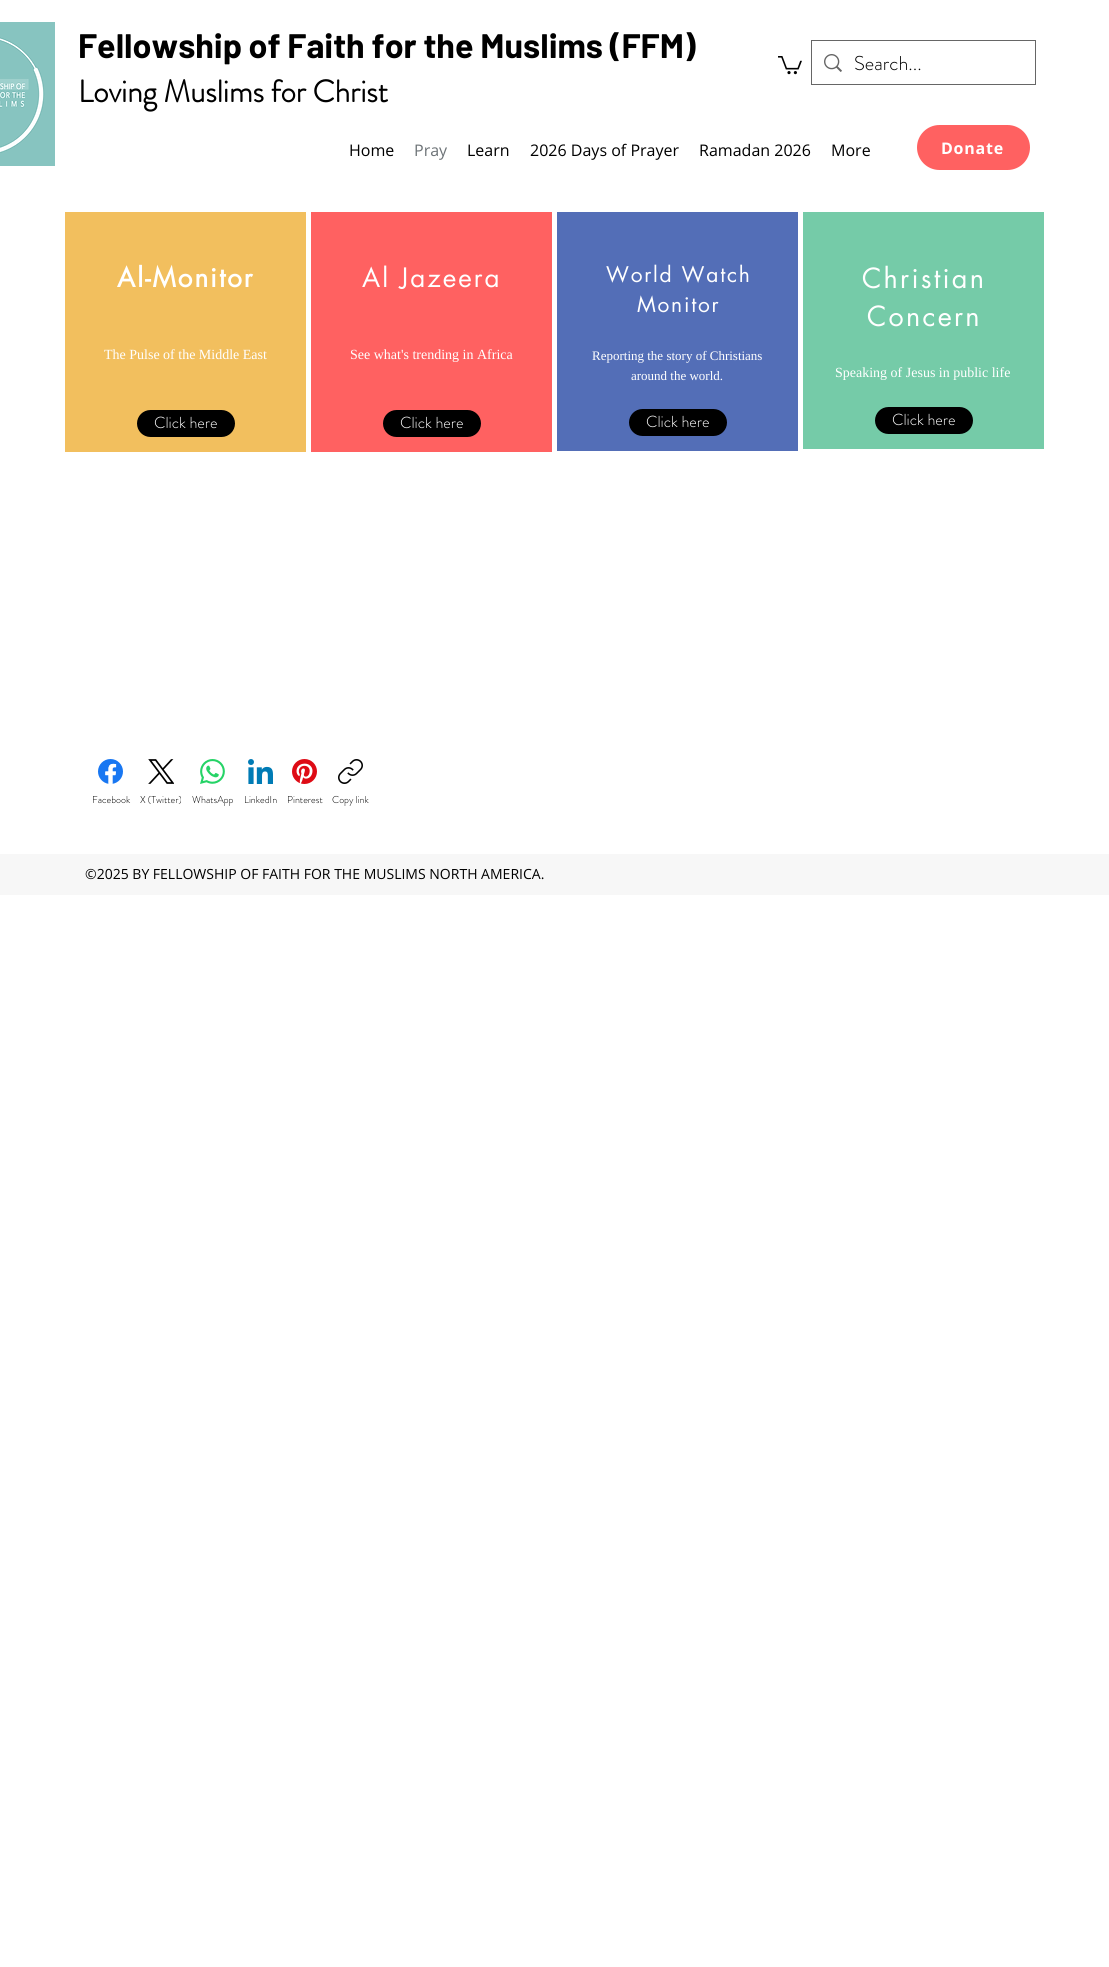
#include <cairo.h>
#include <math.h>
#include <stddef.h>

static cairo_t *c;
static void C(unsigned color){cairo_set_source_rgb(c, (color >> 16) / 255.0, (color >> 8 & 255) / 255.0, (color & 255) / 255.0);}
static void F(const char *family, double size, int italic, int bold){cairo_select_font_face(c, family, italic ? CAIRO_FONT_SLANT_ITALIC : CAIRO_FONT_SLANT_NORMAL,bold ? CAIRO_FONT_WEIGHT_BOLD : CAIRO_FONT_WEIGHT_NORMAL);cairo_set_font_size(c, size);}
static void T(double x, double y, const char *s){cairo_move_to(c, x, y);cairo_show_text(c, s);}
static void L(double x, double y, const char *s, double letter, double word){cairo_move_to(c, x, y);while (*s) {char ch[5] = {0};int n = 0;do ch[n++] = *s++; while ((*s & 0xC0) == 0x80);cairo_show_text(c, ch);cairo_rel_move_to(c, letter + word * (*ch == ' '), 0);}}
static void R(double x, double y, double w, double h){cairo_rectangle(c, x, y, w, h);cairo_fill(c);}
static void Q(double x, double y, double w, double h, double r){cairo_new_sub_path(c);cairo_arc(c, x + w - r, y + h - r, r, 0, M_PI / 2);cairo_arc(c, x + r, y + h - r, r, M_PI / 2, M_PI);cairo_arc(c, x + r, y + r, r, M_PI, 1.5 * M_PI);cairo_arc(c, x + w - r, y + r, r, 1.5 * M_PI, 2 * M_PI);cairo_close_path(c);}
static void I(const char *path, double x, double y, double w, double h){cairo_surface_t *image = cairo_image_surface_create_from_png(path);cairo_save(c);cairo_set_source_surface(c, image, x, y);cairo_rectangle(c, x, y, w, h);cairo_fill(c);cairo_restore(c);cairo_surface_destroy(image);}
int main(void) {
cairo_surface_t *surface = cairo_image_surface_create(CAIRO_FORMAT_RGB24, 1109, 1967);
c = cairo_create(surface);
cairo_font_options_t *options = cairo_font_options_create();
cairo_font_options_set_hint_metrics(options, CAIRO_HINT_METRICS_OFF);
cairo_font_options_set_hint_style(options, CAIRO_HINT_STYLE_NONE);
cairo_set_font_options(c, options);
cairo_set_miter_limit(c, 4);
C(0xffffff);
cairo_paint(c);
I("1.png",0,22,55,144);
F("Barlow",34,0,1);
C(0x000000);
T(78,58,"Fellowship of Faith for the Muslims (FFM)");
I("2.png",778,56,24,19);
cairo_rectangle(c,811.5,40.5,224,44);
C(0x666666);
cairo_set_line_width(c,1);
cairo_stroke(c);
I("3.png",824,54,18,18);
F("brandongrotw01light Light",20,0,0);
C(0x000000);
T(854,70,"Search...");
F("brandongrotw01light",31,0,1);
T(78,102,"Loving Muslims for Christ");
F("Open Sans",16,0,0);
T(349,156,"Home");
C(0x6d7377);
T(414,156,"Pray");
C(0x000000);
T(467,156,"Learn");
T(530,156,"2026 Days of Prayer");
T(699,156,"Ramadan 2026");
T(831,156,"More");
C(0xff6161);
Q(917,125,113,45,22.5);
cairo_fill(c);
F("Open Sans",16,0,1);
C(0xffffff);
L(941,154,"Donate",.75,0);
C(0xf2bf5e);
R(65,212,241,240);
F("futura",26,0,1);
C(0xffffff);
L(117,287,"Al-Monitor",2,0);
F("Liberation Serif",14,0,0);
T(104,359,"The Pulse of the Middle East");
C(0x000000);
Q(137,410,98,27,13.5);
cairo_fill(c);
F("brandongrotw01light Light",16,0,0);
C(0xffffff);
T(154,428,"Click here");
C(0xff6161);
R(311,212,241,240);
F("futura",26,0,0);
C(0xffffff);
L(362,287,"Al Jazeera",2,0);
F("Liberation Serif",14,0,0);
T(350,359,"See what's trending in Africa");
C(0x000000);
Q(383,410,98,27,13.5);
cairo_fill(c);
F("brandongrotw01light Light",16,0,0);
C(0xffffff);
T(400,428,"Click here");
C(0x536eb7);
R(557,212,241,239);
F("futura",21,0,0);
C(0xffffff);
L(606,282,"World Watch",1.75,0);
L(637,312,"Monitor",1.75,0);
F("Liberation Serif",13,0,0);
T(592,360,"Reporting the story of Christians");
T(631,380,"around the world.");
C(0x000000);
Q(629,409,98,27,13.5);
cairo_fill(c);
F("brandongrotw01light Light",16,0,0);
C(0xffffff);
T(646,427,"Click here");
C(0x75cba8);
R(803,212,241,237);
F("futura",27,0,0);
C(0xffffff);
L(862,288,"Christian",2.25,0);
L(867,326,"Concern",2.25,0);
F("Liberation Serif",14,0,0);
T(835,377,"Speaking of Jesus in public life");
C(0x000000);
Q(875,407,98,27,13.5);
cairo_fill(c);
F("brandongrotw01light Light",16,0,0);
C(0xffffff);
T(892,425,"Click here");
I("4.png",98,759,25,25);
F("brandongrotw01light Light",10,0,0);
C(0x000000);
T(92,803,"Facebook");
I("5.png",148,759,26,25);
T(140,803,"X (Twitter)");
I("6.png",200,759,25,25);
T(192,803,"WhatsApp");
I("7.png",248,759,25,25);
T(244,803,"LinkedIn");
I("8.png",292,759,25,25);
T(287,803,"Pinterest");
I("9.png",338,759,25,25);
T(332,803,"Copy link");
C(0xf7f7f7);
R(0,854,1109,41);
F("Open Sans",14,0,0);
C(0x000000);
T(85,879,"©2025 BY FELLOWSHIP OF FAITH FOR THE MUSLIMS NORTH AMERICA.");
cairo_surface_write_to_png(surface, "o.png");
cairo_font_options_destroy(options);
cairo_destroy(c);
cairo_surface_destroy(surface);
return 0;
}
